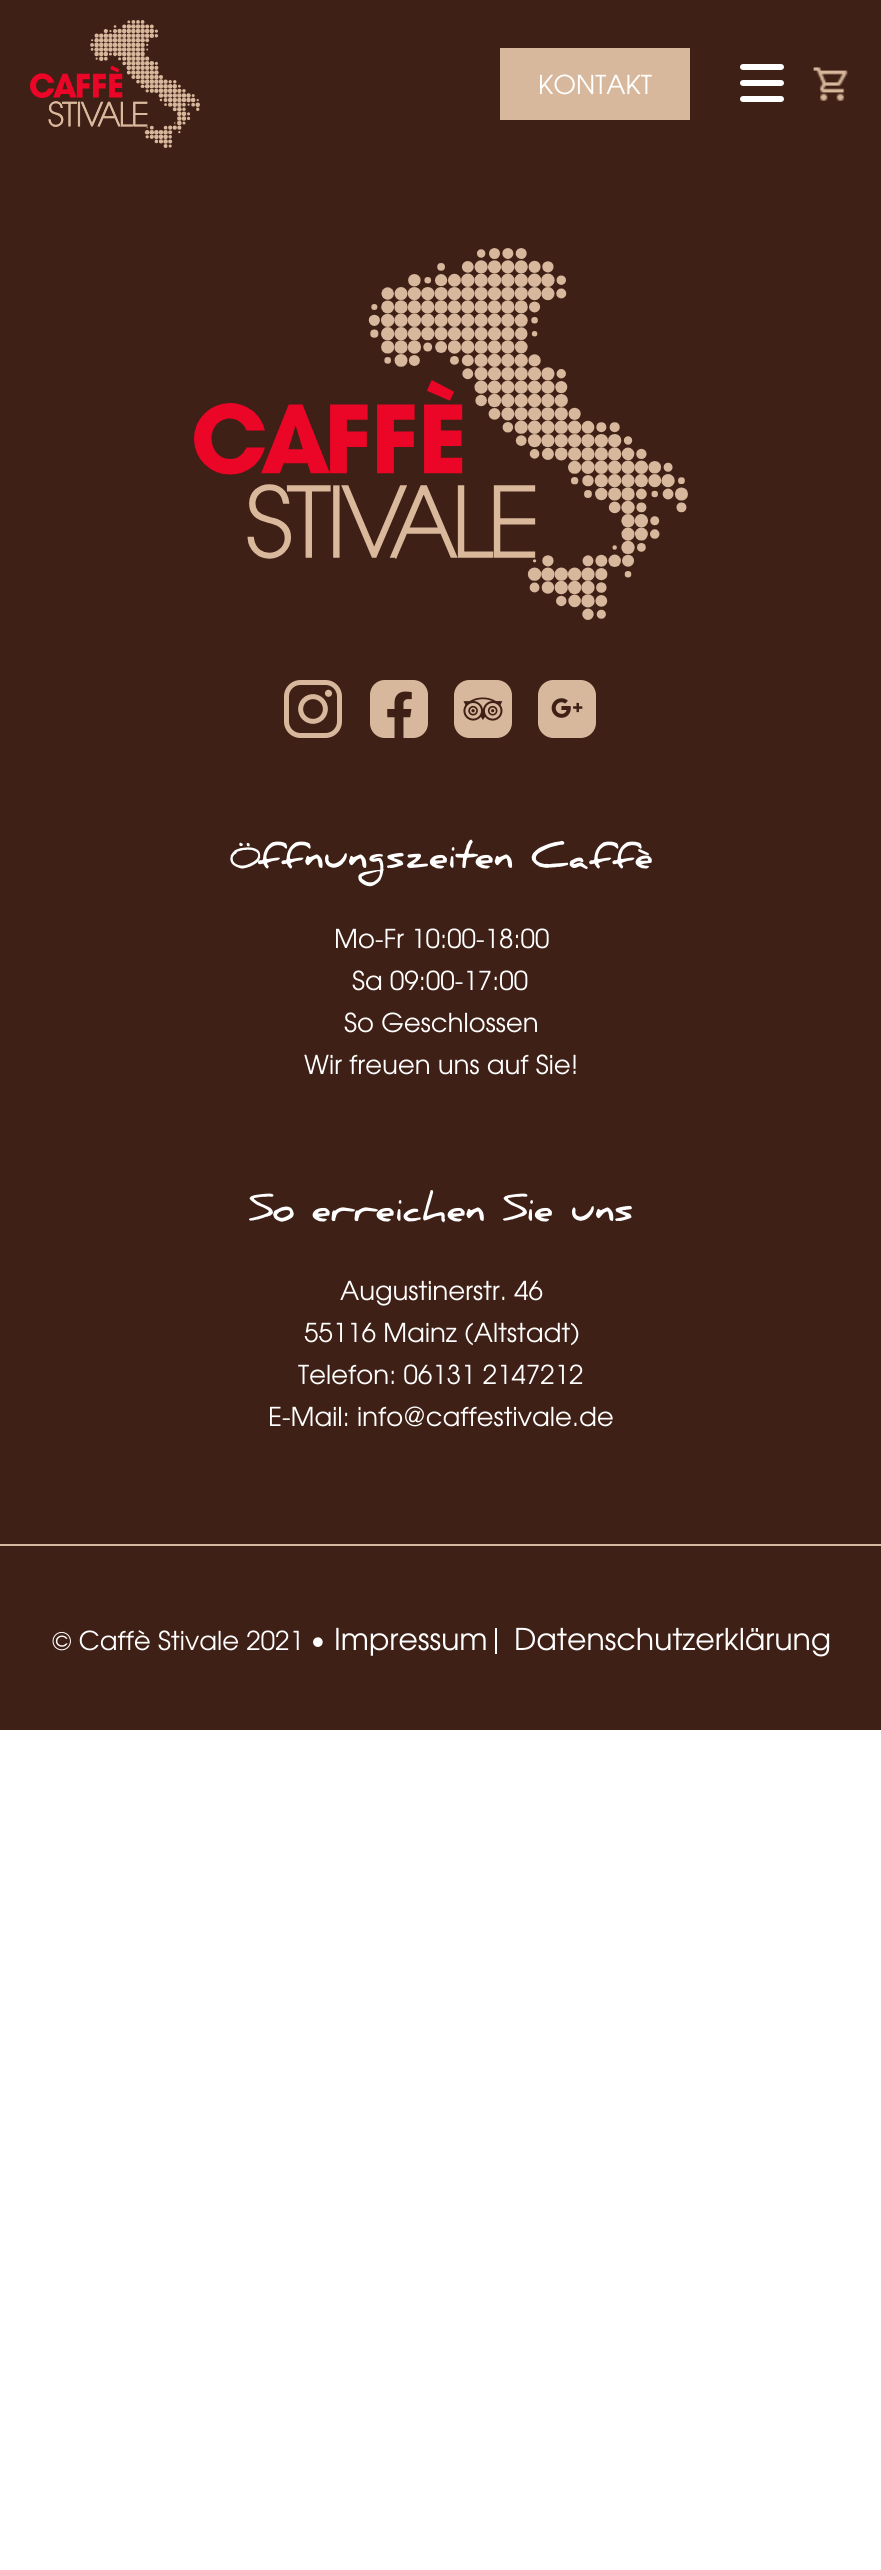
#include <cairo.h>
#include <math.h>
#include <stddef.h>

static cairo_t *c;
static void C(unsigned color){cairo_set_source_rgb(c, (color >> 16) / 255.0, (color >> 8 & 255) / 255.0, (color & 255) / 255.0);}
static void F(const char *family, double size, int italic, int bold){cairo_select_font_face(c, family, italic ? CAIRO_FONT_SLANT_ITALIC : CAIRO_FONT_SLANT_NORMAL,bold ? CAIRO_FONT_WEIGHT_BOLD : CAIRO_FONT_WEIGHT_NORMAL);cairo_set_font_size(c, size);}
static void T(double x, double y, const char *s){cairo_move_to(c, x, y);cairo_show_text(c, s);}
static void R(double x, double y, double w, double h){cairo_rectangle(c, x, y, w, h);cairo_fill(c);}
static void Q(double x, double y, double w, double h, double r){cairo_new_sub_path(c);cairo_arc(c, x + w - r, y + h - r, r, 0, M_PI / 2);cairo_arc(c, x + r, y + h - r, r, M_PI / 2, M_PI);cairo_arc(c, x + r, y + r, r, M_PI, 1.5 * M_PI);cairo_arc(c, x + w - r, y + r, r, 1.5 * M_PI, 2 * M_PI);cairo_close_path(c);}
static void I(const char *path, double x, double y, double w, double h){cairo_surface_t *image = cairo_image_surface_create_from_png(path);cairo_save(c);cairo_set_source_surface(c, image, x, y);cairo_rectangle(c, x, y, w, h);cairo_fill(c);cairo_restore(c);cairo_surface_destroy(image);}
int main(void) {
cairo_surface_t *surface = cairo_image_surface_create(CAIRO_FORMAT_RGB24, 881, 2570);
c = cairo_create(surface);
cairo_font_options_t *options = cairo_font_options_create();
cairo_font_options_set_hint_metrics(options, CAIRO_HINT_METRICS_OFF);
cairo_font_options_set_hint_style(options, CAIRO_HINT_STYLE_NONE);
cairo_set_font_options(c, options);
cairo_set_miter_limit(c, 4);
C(0xffffff);
cairo_paint(c);
C(0x3f2016);
R(0,0,881,1730);
I("1.png",30,20,170,128);
C(0xd8b89c);
R(500,48,190,72);
I("2.png",540,74,112,21);
C(0xffffff);
Q(740,64,44,6,3);
cairo_fill(c);
Q(740,80,44,6,3);
cairo_fill(c);
Q(740,96,44,6,3);
cairo_fill(c);
I("3.png",813,67,35,34);
I("4.png",194,248,494,372);
I("5.png",284,680,58,58);
I("6.png",370,680,58,58);
I("7.png",454,680,58,58);
I("8.png",538,680,58,58);
F("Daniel",36,0,1);
T(230,868,"Öffnungszeiten Caffè");
I("9.png",336,928,213,21);
I("10.png",352,970,176,21);
I("11.png",344,1012,193,21);
I("12.png",304,1054,272,21);
T(249,1221,"So erreichen Sie uns");
I("13.png",340,1280,203,26);
I("14.png",304,1322,275,24);
I("15.png",298,1364,285,21);
I("16.png",270,1406,343,21);
C(0xd3b9a0);
R(0,1544,881,2);
I("17.png",52,1630,247,21);
I("18.png",313,1637,10,10);
I("19.png",336,1627,150,29);
C(0xffffff);
R(495,1628,2,26);
I("20.png",516,1627,314,30);
cairo_surface_write_to_png(surface, "o.png");
cairo_font_options_destroy(options);
cairo_destroy(c);
cairo_surface_destroy(surface);
return 0;
}
